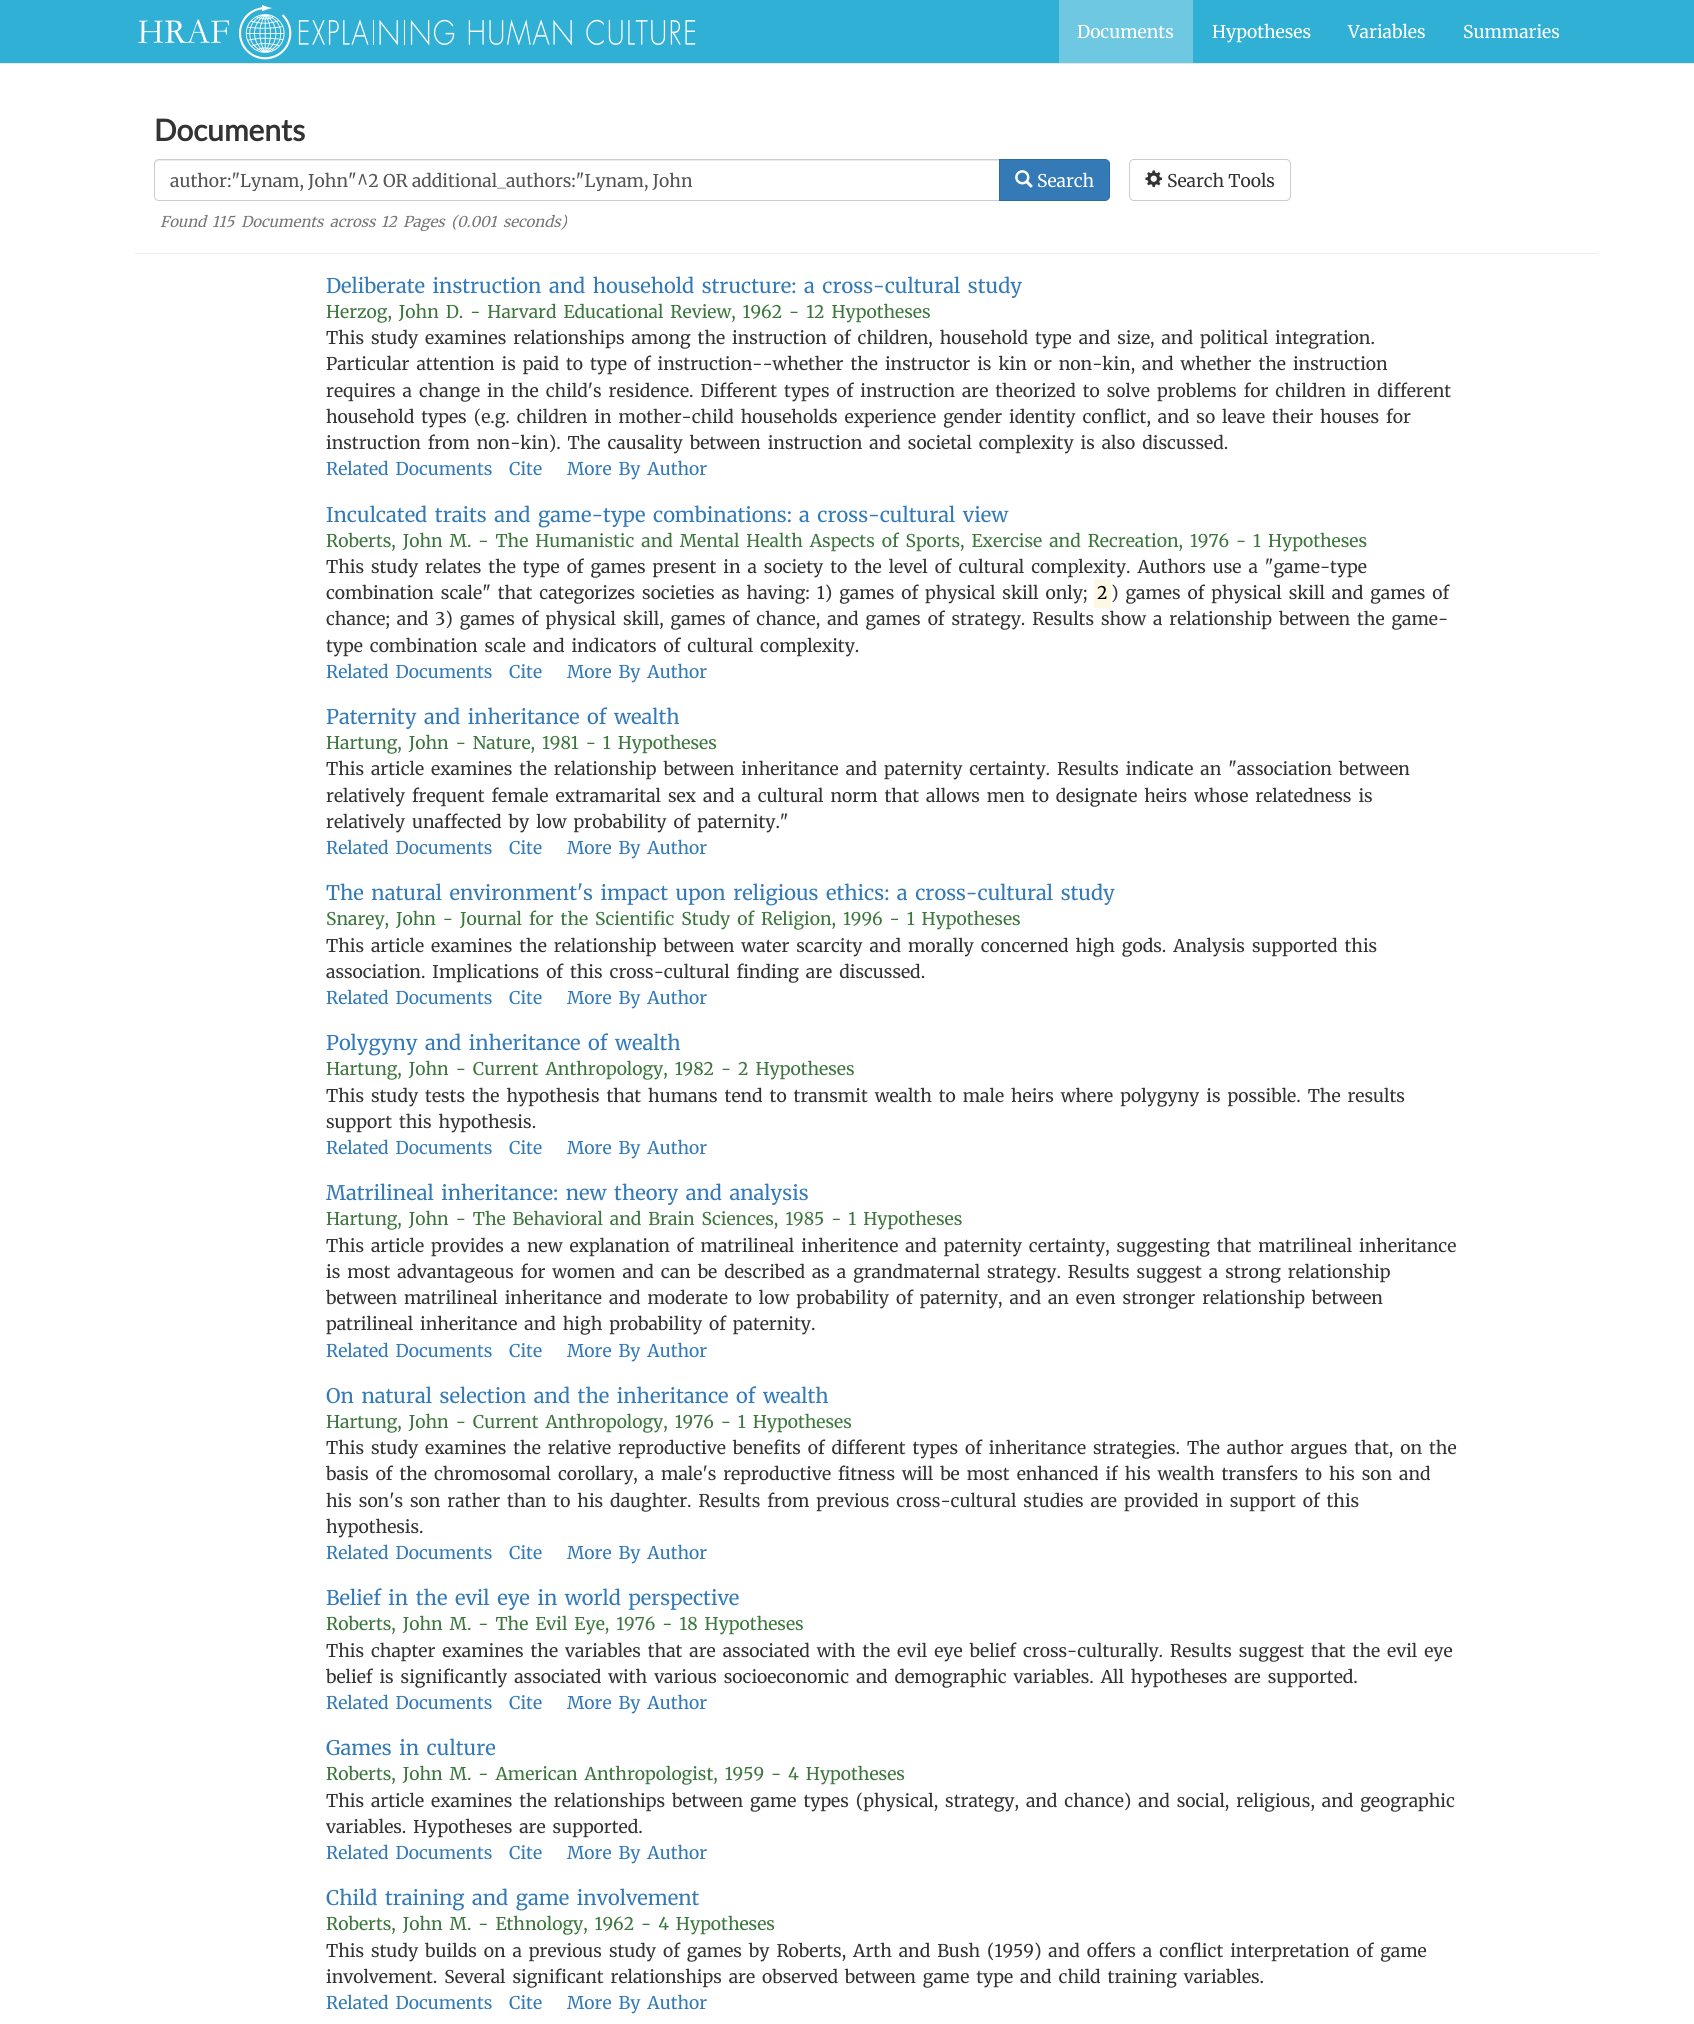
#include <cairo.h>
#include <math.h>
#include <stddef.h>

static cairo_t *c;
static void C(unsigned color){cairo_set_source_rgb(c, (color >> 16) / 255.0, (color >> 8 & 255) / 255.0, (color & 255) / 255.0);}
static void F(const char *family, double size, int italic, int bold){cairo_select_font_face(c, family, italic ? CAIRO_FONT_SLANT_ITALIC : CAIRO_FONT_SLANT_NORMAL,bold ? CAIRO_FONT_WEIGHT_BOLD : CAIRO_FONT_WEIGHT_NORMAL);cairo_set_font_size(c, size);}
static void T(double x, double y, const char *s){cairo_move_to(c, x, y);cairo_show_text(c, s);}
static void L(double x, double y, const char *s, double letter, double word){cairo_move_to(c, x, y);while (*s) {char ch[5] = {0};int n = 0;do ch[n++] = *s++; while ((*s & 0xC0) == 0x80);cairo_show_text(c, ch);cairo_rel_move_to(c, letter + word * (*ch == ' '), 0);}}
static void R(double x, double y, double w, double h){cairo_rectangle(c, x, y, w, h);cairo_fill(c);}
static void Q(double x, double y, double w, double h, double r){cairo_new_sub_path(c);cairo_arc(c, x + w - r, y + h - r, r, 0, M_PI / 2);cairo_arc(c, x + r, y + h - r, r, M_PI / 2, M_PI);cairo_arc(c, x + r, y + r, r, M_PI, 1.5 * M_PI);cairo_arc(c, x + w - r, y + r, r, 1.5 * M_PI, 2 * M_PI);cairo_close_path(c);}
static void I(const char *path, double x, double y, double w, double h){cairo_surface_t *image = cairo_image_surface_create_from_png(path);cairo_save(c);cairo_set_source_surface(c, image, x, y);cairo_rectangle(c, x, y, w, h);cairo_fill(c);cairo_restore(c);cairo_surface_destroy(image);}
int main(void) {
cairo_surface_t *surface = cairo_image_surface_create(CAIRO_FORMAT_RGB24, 1694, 2024);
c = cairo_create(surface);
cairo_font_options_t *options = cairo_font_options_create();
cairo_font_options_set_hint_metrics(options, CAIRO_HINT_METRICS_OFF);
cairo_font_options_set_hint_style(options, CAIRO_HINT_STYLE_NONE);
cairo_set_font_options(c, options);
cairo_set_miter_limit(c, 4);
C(0xffffff);
cairo_paint(c);
C(0x31b0d5);
R(0,0,1694,63);
C(0xe7e7e7);
R(0,63,1694,1);
I("1.png",137,5,559,55);
C(0x6fc8e2);
R(1059,0,134,63);
F("Merriweather Light",17.5,0,0);
C(0xffffff);
T(1077,38,"Documents");
T(1212,38,"Hypotheses");
T(1348,38,"Variables");
T(1463,38,"Summaries");
F("Lato",30,0,1);
C(0x333333);
T(154,141,"Documents");
C(0xececec);
cairo_new_path(c);
cairo_move_to(c,159,161);
cairo_line_to(c,999,161);
cairo_line_to(c,999,160);
cairo_line_to(c,159,160);
cairo_curve_to(c,156,160,155,162,155,165);
cairo_curve_to(c,155,163,157,161,159,161);
cairo_close_path(c);
cairo_fill(c);
cairo_new_path(c);
cairo_move_to(c,159,159.5);
cairo_line_to(c,999.5,159.5);
cairo_line_to(c,999.5,200.5);
cairo_line_to(c,159,200.5);
cairo_curve_to(c,156.5,200.5,154.5,198.5,154.5,196);
cairo_line_to(c,154.5,164);
cairo_curve_to(c,154.5,161.5,156.5,159.5,159,159.5);
cairo_close_path(c);
C(0xcccccc);
cairo_set_line_width(c,1);
cairo_stroke(c);
cairo_save(c);
cairo_rectangle(c,170,169,809,22);
cairo_clip(c);
F("Merriweather Light",17.5,0,0);
C(0x555555);
T(170,187,"author:\"Lynam, John\"^2 OR additional_authors:\"Lynam, John");
cairo_restore(c);
C(0x337ab7);
cairo_new_path(c);
cairo_move_to(c,999.5,159.5);
cairo_line_to(c,1105,159.5);
cairo_curve_to(c,1107.5,159.5,1109.5,161.5,1109.5,164);
cairo_line_to(c,1109.5,196);
cairo_curve_to(c,1109.5,198.5,1107.5,200.5,1105,200.5);
cairo_line_to(c,999.5,200.5);
cairo_close_path(c);
cairo_fill_preserve(c);
C(0x2e6da4);
cairo_stroke(c);
I("2.png",1015,170,18,18);
F("Merriweather Light",17.5,0,0);
C(0xffffff);
T(1037,187,"Search");
Q(1129.5,159.5,161,41,4.5);
C(0xcccccc);
cairo_stroke(c);
I("3.png",1145,170,18,18);
C(0x333333);
T(1167,187,"Search Tools");
C(0xeeeeee);
R(135,253,1463,1);
F("Merriweather Light",14.9,1,0);
C(0x777777);
T(160,227,"Found");
T(212,227,"115");
L(241,227,"Documents across",0,2.8);
T(381,227,"12");
L(403,227,"Pages (",0,2.8);
T(457,227,"0.001");
T(503,227,"seconds)");
F("Merriweather Light",20.1,0,0);
C(0x337ab7);
L(326,293,"Deliberate instruction and household structure:",0,2.8);
L(804,293,"a cross-cultural study",0,2.8);
F("Merriweather Light",17.5,0,0);
C(0x3c763d);
L(326,318,"Herzog, John D. - Harvard Educational Review, 1962 - 12 Hypotheses",0,2.8);
C(0x333333);
L(326,344,"This study examines relationships among the instruction of children, household type and size, and political integration.",0,2.8);
L(326,370,"Particular attention is paid to type of instruction--whether the instructor is kin or non-kin, and whether the instruction",0,2.8);
L(326,397,"requires a change in the child's residence. Different types of instruction are theorized to solve problems for children in different",0,2.8);
L(326,423,"household types (e.g. children in mother-child households experience gender identity conflict, and so leave their houses for",0,2.8);
L(326,449,"instruction from non-kin). The causality between instruction and societal complexity is also discussed.",0,2.8);
C(0x337ab7);
L(326,475,"Related Documents",0,2.8);
T(509,475,"Cite");
L(567,475,"More By Author",0,2.8);
F("Merriweather Light",20.1,0,0);
L(326,522,"Inculcated traits and game-type combinations:",0,2.8);
L(799,522,"a cross-cultural view",0,2.8);
F("Merriweather Light",17.5,0,0);
C(0x3c763d);
L(326,547,"Roberts, John M. - The Humanistic and Mental Health Aspects of Sports, Exercise and Recreation, 1976 - 1 Hypotheses",0,2.8);
C(0x333333);
L(326,573,"This study relates the type of games present in a society to the level of cultural complexity. Authors use a \"game-type",0,2.8);
L(326,599,"combination scale\" that categorizes societies as having: 1) games of physical skill only;",0,2.8);
C(0xfcf8e3);
R(1094,579,17,29);
C(0x000000);
T(1097,599,"2");
C(0x333333);
L(1111,599,") games of physical skill and games of",0,2.8);
L(326,625,"chance; and 3) games of physical skill, games of chance, and games of strategy. Results show a relationship between the game-",0,2.8);
L(326,652,"type combination scale and indicators of cultural complexity.",0,2.8);
C(0x337ab7);
L(326,678,"Related Documents",0,2.8);
T(509,678,"Cite");
L(567,678,"More By Author",0,2.8);
F("Merriweather Light",20.1,0,0);
L(326,724,"Paternity and inheritance of wealth",0,2.8);
F("Merriweather Light",17.5,0,0);
C(0x3c763d);
L(326,749,"Hartung, John - Nature, 1981 - 1 Hypotheses",0,2.8);
C(0x333333);
L(326,775,"This article examines the relationship between inheritance and paternity certainty. Results indicate an \"association between",0,2.8);
L(326,802,"relatively frequent female extramarital sex and a cultural norm that allows men to designate heirs whose relatedness is",0,2.8);
L(326,828,"relatively unaffected by low probability of paternity.\"",0,2.8);
C(0x337ab7);
L(326,854,"Related Documents",0,2.8);
T(509,854,"Cite");
L(567,854,"More By Author",0,2.8);
F("Merriweather Light",20.1,0,0);
L(326,900,"The natural environment's impact upon religious ethics: a cross-cultural study",0,2.8);
F("Merriweather Light",17.5,0,0);
C(0x3c763d);
L(326,925,"Snarey, John - Journal for the Scientific Study of Religion, 1996 - 1 Hypotheses",0,2.8);
C(0x333333);
L(326,952,"This article examines the relationship between water scarcity and morally concerned high gods. Analysis supported this",0,2.8);
L(326,978,"association. Implications of this cross-cultural finding are discussed.",0,2.8);
C(0x337ab7);
L(326,1004,"Related Documents",0,2.8);
T(509,1004,"Cite");
L(567,1004,"More By Author",0,2.8);
F("Merriweather Light",20.1,0,0);
L(326,1050,"Polygyny and inheritance of wealth",0,2.8);
F("Merriweather Light",17.5,0,0);
C(0x3c763d);
L(326,1075,"Hartung, John - Current Anthropology, 1982 - 2 Hypotheses",0,2.8);
C(0x333333);
L(326,1102,"This study tests the hypothesis that humans tend to transmit wealth to male heirs where polygyny is possible. The results",0,2.8);
L(326,1128,"support this hypothesis.",0,2.8);
C(0x337ab7);
L(326,1154,"Related Documents",0,2.8);
T(509,1154,"Cite");
L(567,1154,"More By Author",0,2.8);
F("Merriweather Light",20.1,0,0);
L(326,1200,"Matrilineal inheritance: new theory and analysis",0,2.8);
F("Merriweather Light",17.5,0,0);
C(0x3c763d);
L(326,1225,"Hartung, John - The Behavioral and Brain Sciences, 1985 - 1 Hypotheses",0,2.8);
C(0x333333);
L(326,1252,"This article provides a new explanation of matrilineal inheritence and paternity certainty, suggesting that matrilineal inheritance",0,2.8);
L(326,1278,"is most advantageous for women and can be described as a grandmaternal strategy. Results suggest a strong relationship",0,2.8);
L(326,1304,"between matrilineal inheritance and moderate to low probability of paternity, and an even stronger relationship between",0,2.8);
L(326,1330,"patrilineal inheritance and high probability of paternity.",0,2.8);
C(0x337ab7);
L(326,1357,"Related Documents",0,2.8);
T(509,1357,"Cite");
L(567,1357,"More By Author",0,2.8);
F("Merriweather Light",20.1,0,0);
L(326,1403,"On natural selection and the inheritance of wealth",0,2.8);
F("Merriweather Light",17.5,0,0);
C(0x3c763d);
L(326,1428,"Hartung, John - Current Anthropology, 1976 - 1 Hypotheses",0,2.8);
C(0x333333);
L(326,1454,"This study examines the relative reproductive benefits of different types of inheritance strategies. The author argues that, on the",0,2.8);
L(326,1480,"basis of the chromosomal corollary, a male's reproductive fitness will be most enhanced if his wealth transfers to his son and",0,2.8);
L(326,1507,"his son's son rather than to his daughter. Results from previous cross-cultural studies are provided in support of this",0,2.8);
T(326,1533,"hypothesis.");
C(0x337ab7);
L(326,1559,"Related Documents",0,2.8);
T(509,1559,"Cite");
L(567,1559,"More By Author",0,2.8);
F("Merriweather Light",20.1,0,0);
L(326,1605,"Belief in the evil eye in world perspective",0,2.8);
F("Merriweather Light",17.5,0,0);
C(0x3c763d);
L(326,1630,"Roberts, John M. - The Evil Eye, 1976 - 18 Hypotheses",0,2.8);
C(0x333333);
L(326,1657,"This chapter examines the variables that are associated with the evil eye belief cross-culturally. Results suggest that the evil eye",0,2.8);
L(326,1683,"belief is significantly associated with various socioeconomic and demographic variables. All hypotheses are supported.",0,2.8);
C(0x337ab7);
L(326,1709,"Related Documents",0,2.8);
T(509,1709,"Cite");
L(567,1709,"More By Author",0,2.8);
F("Merriweather Light",20.1,0,0);
L(326,1755,"Games in culture",0,2.8);
F("Merriweather Light",17.5,0,0);
C(0x3c763d);
L(326,1780,"Roberts, John M. - American Anthropologist, 1959 - 4 Hypotheses",0,2.8);
C(0x333333);
L(326,1807,"This article examines the relationships between game types (physical, strategy, and chance) and social, religious, and geographic",0,2.8);
L(326,1833,"variables. Hypotheses are supported.",0,2.8);
C(0x337ab7);
L(326,1859,"Related Documents",0,2.8);
T(509,1859,"Cite");
L(567,1859,"More By Author",0,2.8);
F("Merriweather Light",20.1,0,0);
L(326,1905,"Child training and game involvement",0,2.8);
F("Merriweather Light",17.5,0,0);
C(0x3c763d);
L(326,1930,"Roberts, John M. - Ethnology, 1962 - 4 Hypotheses",0,2.8);
C(0x333333);
L(326,1957,"This study builds on a previous study of games by Roberts, Arth and Bush (1959) and offers a conflict interpretation of game",0,2.8);
L(326,1983,"involvement. Several significant relationships are observed between game type and child training variables.",0,2.8);
C(0x337ab7);
L(326,2009,"Related Documents",0,2.8);
T(509,2009,"Cite");
L(567,2009,"More By Author",0,2.8);
cairo_surface_write_to_png(surface, "o.png");
cairo_font_options_destroy(options);
cairo_destroy(c);
cairo_surface_destroy(surface);
return 0;
}
